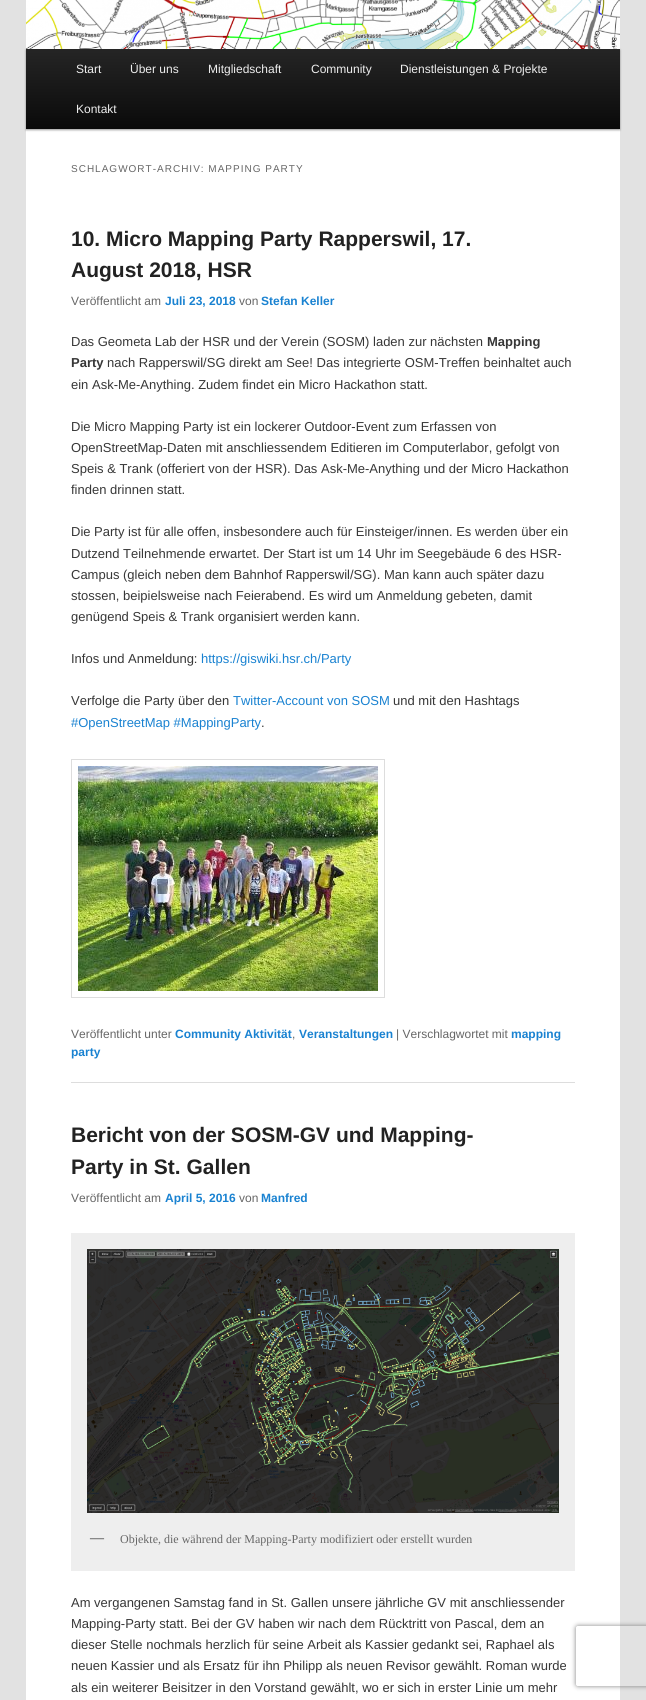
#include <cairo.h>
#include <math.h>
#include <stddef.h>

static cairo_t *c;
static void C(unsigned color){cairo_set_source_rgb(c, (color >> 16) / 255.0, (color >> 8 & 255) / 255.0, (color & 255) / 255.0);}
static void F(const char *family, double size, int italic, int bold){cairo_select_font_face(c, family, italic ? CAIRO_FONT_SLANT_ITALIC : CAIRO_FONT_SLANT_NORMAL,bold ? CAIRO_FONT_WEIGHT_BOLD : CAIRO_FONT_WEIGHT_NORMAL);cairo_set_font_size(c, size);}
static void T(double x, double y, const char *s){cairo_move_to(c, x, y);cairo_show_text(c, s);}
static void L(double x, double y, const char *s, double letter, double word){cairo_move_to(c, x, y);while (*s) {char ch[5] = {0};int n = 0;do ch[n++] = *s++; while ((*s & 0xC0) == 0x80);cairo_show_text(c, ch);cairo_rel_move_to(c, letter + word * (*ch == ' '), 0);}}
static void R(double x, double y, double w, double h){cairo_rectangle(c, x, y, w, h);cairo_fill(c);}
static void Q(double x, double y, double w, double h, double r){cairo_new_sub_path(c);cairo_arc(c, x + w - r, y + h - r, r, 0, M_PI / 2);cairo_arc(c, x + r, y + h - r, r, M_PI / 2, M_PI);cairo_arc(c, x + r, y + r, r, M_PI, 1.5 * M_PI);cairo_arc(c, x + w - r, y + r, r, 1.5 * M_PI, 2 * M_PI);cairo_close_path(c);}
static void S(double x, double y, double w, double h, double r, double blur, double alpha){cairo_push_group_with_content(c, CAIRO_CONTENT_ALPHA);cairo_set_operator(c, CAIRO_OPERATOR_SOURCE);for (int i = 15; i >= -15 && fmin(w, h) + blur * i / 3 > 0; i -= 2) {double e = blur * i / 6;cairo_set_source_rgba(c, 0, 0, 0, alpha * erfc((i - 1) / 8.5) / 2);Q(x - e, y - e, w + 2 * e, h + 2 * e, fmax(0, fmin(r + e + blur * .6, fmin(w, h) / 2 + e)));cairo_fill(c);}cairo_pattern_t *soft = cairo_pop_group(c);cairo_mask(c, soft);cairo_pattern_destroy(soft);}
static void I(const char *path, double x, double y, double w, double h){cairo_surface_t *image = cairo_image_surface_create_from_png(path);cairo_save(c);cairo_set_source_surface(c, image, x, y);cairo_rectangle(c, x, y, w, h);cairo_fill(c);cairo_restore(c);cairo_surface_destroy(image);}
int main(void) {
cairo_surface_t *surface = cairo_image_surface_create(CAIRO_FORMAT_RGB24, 646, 1700);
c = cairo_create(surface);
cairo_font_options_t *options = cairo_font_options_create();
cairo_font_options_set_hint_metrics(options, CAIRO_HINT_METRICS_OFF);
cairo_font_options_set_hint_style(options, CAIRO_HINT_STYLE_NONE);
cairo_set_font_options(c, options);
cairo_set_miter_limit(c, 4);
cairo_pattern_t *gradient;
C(0xe2e2e2);
cairo_paint(c);
C(0xffffff);
R(26,129,594,1571);
C(0x000000);
S(26,50,594,80,0,1,.4);
I("1.png",26,0,594,49);
gradient = cairo_pattern_create_linear(323,49,323,129);
cairo_pattern_add_color_stop_rgba(gradient,0,0.145,0.145,0.145,1);
cairo_pattern_add_color_stop_rgba(gradient,1,0.039,0.039,0.039,1);
cairo_set_source(c,gradient);
cairo_pattern_destroy(gradient);
R(26,49,594,80);
F("Liberation Sans",12,0,0);
C(0xeeeeee);
T(76,73,"Start");
T(130,73,"Über uns");
T(208,73,"Mitgliedschaft");
T(311,73,"Community");
T(400,73,"Dienstleistungen & Projekte");
T(76,113,"Kontakt");
F("Liberation Sans",10,0,0);
C(0x666666);
L(71,172,"SCHLAGWORT-ARCHIV: MAPPING PARTY",1,0);
C(0xdddddd);
R(71,1082,504,1);
F("Liberation Sans",21,0,1);
C(0x222222);
T(71,246,"10. Micro Mapping Party Rapperswil, 17.");
T(71,277,"August 2018, HSR");
F("Liberation Sans",12,0,0);
C(0x666666);
T(71,305,"Veröffentlicht am");
F("Liberation Sans",12,0,1);
C(0x1982d1);
T(165,305,"Juli 23, 2018");
F("Liberation Sans",12,0,0);
C(0x666666);
T(239,305,"von");
F("Liberation Sans",12,0,1);
C(0x1982d1);
T(261,305,"Stefan Keller");
F("Liberation Sans",13,0,0);
C(0x373737);
T(71,346,"Das Geometa Lab der HSR und der Verein (SOSM) laden zur nächsten");
F("Liberation Sans",13,0,1);
T(487,346,"Mapping");
T(71,367,"Party");
F("Liberation Sans",13,0,0);
T(107,367,"nach Rapperswil/SG direkt am See! Das integrierte OSM-Treffen beinhaltet auch");
T(71,389,"ein Ask-Me-Anything. Zudem findet ein Micro Hackathon statt.");
T(71,431,"Die Micro Mapping Party ist ein lockerer Outdoor-Event zum Erfassen von");
T(71,452,"OpenStreetMap-Daten mit anschliessendem Editieren im Computerlabor, gefolgt von");
T(71,473,"Speis & Trank (offeriert von der HSR). Das Ask-Me-Anything und der Micro Hackathon");
T(71,494,"finden drinnen statt.");
T(71,536,"Die Party ist für alle offen, insbesondere auch für Einsteiger/innen. Es werden über ein");
T(71,558,"Dutzend Teilnehmende erwartet. Der Start ist um 14 Uhr im Seegebäude 6 des HSR-");
T(71,579,"Campus (gleich neben dem Bahnhof Rapperswil/SG). Man kann auch später dazu");
T(71,600,"stossen, beipielsweise nach Feierabend. Es wird um Anmeldung gebeten, damit");
T(71,621,"genügend Speis & Trank organisiert werden kann.");
T(71,663,"Infos und Anmeldung:");
C(0x1982d1);
T(201,663,"https://giswiki.hsr.ch/Party");
C(0x373737);
T(71,705,"Verfolge die Party über den");
C(0x1982d1);
T(233,705,"Twitter-Account von SOSM");
C(0x373737);
T(393,705,"und mit den Hashtags");
C(0x1982d1);
T(71,727,"#OpenStreetMap #MappingParty");
C(0x373737);
T(261,727,".");
cairo_rectangle(c,71.5,759.5,313,238);
C(0xdddddd);
cairo_set_line_width(c,1);
cairo_stroke(c);
I("2.png",78,766,300,225);
F("Liberation Sans",12,0,0);
C(0x666666);
T(71,1038,"Veröffentlicht unter");
F("Liberation Sans",12,0,1);
C(0x1982d1);
T(175,1038,"Community Aktivität");
F("Liberation Sans",12,0,0);
C(0x666666);
T(292,1038,",");
F("Liberation Sans",12,0,1);
C(0x1982d1);
T(299,1038,"Veranstaltungen");
F("Liberation Sans",12,0,0);
C(0x666666);
T(396,1038,"| Verschlagwortet mit");
F("Liberation Sans",12,0,1);
C(0x1982d1);
T(511,1038,"mapping");
T(71,1056,"party");
F("Liberation Sans",21,0,1);
C(0x222222);
T(71,1142,"Bericht von der SOSM-GV und Mapping-");
T(71,1174,"Party in St. Gallen");
F("Liberation Sans",12,0,0);
C(0x666666);
T(71,1202,"Veröffentlicht am");
F("Liberation Sans",12,0,1);
C(0x1982d1);
T(165,1202,"April 5, 2016");
F("Liberation Sans",12,0,0);
C(0x666666);
T(239,1202,"von");
F("Liberation Sans",12,0,1);
C(0x1982d1);
T(261,1202,"Manfred");
C(0xeeeeee);
R(71,1233,504,338);
I("3.png",87,1249,472,264);
F("Liberation Serif",14,0,1);
C(0x666666);
T(90,1542,"—");
F("Liberation Serif",12,0,0);
T(120,1543,"Objekte, die während der Mapping-Party modifiziert oder erstellt wurden");
F("Liberation Sans",13,0,0);
C(0x373737);
T(71,1607,"Am vergangenen Samstag fand in St. Gallen unsere jährliche GV mit anschliessender");
T(71,1628,"Mapping-Party statt. Bei der GV haben wir nach dem Rücktritt von Pascal, dem an");
T(71,1649,"dieser Stelle nochmals herzlich für seine Arbeit als Kassier gedankt sei, Raphael als");
T(71,1670,"neuen Kassier und als Ersatz für ihn Philipp als neuen Revisor gewählt. Roman wurde");
T(71,1692,"als ein weiterer Beisitzer in den Vorstand gewählt, wo er sich in erster Linie um mehr");
cairo_save(c);
cairo_set_fill_rule(c,CAIRO_FILL_RULE_EVEN_ODD);
cairo_new_path(c);
cairo_move_to(c,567,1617);
cairo_line_to(c,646,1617);
cairo_line_to(c,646,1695);
cairo_line_to(c,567,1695);
cairo_close_path(c);
cairo_move_to(c,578,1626);
cairo_line_to(c,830,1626);
cairo_curve_to(c,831,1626,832,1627,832,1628);
cairo_line_to(c,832,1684);
cairo_curve_to(c,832,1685,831,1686,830,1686);
cairo_line_to(c,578,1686);
cairo_curve_to(c,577,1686,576,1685,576,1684);
cairo_line_to(c,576,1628);
cairo_curve_to(c,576,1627,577,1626,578,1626);
cairo_close_path(c);
cairo_clip(c);
C(0x808080);
S(576,1626,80,60,2,2.5,1);
cairo_restore(c);
cairo_surface_write_to_png(surface, "o.png");
cairo_font_options_destroy(options);
cairo_destroy(c);
cairo_surface_destroy(surface);
return 0;
}
